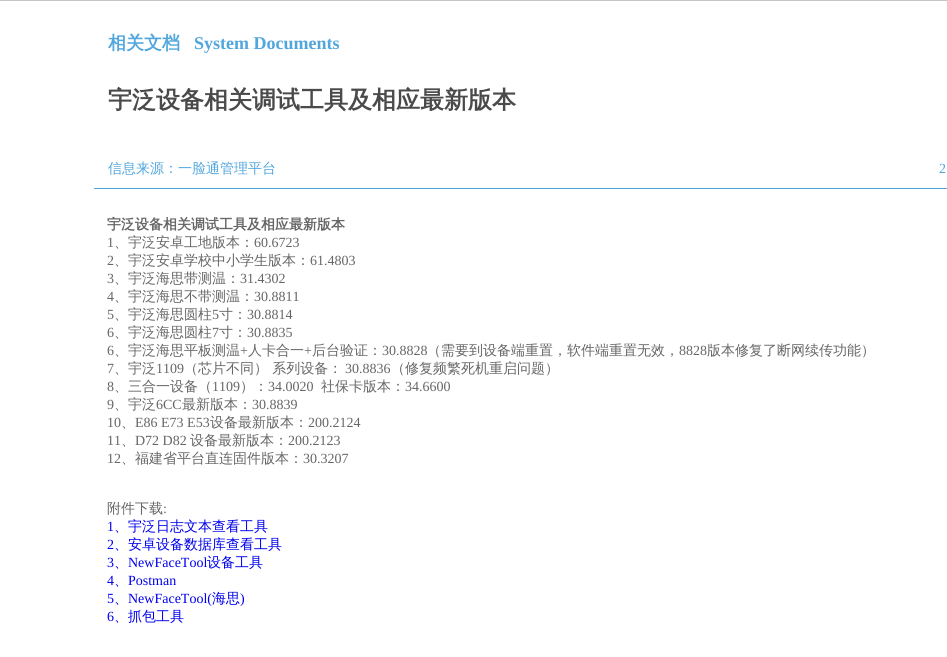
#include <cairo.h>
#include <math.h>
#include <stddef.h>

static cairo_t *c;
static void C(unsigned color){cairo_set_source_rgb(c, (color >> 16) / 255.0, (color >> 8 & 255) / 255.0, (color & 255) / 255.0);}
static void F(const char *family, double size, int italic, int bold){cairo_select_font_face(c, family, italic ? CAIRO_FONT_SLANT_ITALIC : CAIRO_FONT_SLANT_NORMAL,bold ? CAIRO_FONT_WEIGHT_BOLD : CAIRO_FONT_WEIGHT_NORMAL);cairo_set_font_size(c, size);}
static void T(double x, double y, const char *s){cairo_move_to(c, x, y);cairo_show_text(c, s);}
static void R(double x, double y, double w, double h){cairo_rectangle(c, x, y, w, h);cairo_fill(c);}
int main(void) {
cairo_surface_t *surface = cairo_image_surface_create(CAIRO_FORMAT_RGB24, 947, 657);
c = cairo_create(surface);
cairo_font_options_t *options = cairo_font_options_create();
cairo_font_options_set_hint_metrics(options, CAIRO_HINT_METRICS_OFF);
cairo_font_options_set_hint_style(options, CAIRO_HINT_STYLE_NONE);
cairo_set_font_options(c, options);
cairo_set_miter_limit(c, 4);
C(0xffffff);
cairo_paint(c);
C(0xc4c4c4);
R(0,0,947,1);
F("WenQuanYi Zen Hei",18,0,1);
C(0x51a6dd);
T(108,49,"相关文档");
F("Liberation Serif",18,0,1);
T(194,49,"System Documents");
F("WenQuanYi Zen Hei",24,0,1);
C(0x4a4a4a);
T(108,108,"宇泛设备相关调试工具及相应最新版本");
C(0x51a6dd);
R(94,188,853,1);
F("WenQuanYi Zen Hei Medium",14,0,0);
T(108,173,"信息来源：一脸通管理平台");
F("Liberation Serif",14,0,0);
T(939,173,"2");
F("WenQuanYi Zen Hei",14,0,1);
C(0x666666);
T(107,229,"宇泛设备相关调试工具及相应最新版本");
F("Liberation Serif",14,0,0);
T(107,247,"1");
F("WenQuanYi Zen Hei Medium",14,0,0);
T(114,247,"、宇泛安卓工地版本：");
F("Liberation Serif",14,0,0);
T(254,247,"60.6723");
T(107,265,"2");
F("WenQuanYi Zen Hei Medium",14,0,0);
T(114,265,"、宇泛安卓学校中小学生版本：");
F("Liberation Serif",14,0,0);
T(310,265,"61.4803");
T(107,283,"3");
F("WenQuanYi Zen Hei Medium",14,0,0);
T(114,283,"、宇泛海思带测温：");
F("Liberation Serif",14,0,0);
T(240,283,"31.4302");
T(107,301,"4");
F("WenQuanYi Zen Hei Medium",14,0,0);
T(114,301,"、宇泛海思不带测温：");
F("Liberation Serif",14,0,0);
T(254,301,"30.8811");
T(107,319,"5");
F("WenQuanYi Zen Hei Medium",14,0,0);
T(114,319,"、宇泛海思圆柱");
F("Liberation Serif",14,0,0);
T(212,319,"5");
F("WenQuanYi Zen Hei Medium",14,0,0);
T(219,319,"寸：");
F("Liberation Serif",14,0,0);
T(247,319,"30.8814");
T(107,337,"6");
F("WenQuanYi Zen Hei Medium",14,0,0);
T(114,337,"、宇泛海思圆柱");
F("Liberation Serif",14,0,0);
T(212,337,"7");
F("WenQuanYi Zen Hei Medium",14,0,0);
T(219,337,"寸：");
F("Liberation Serif",14,0,0);
T(247,337,"30.8835");
T(107,355,"6");
F("WenQuanYi Zen Hei Medium",14,0,0);
T(114,355,"、宇泛海思平板测温");
F("Liberation Serif",14,0,0);
T(240,355,"+");
F("WenQuanYi Zen Hei Medium",14,0,0);
T(248,355,"人卡合一");
F("Liberation Serif",14,0,0);
T(304,355,"+");
F("WenQuanYi Zen Hei Medium",14,0,0);
T(312,355,"后台验证：");
F("Liberation Serif",14,0,0);
T(382,355,"30.8828");
F("WenQuanYi Zen Hei Medium",14,0,0);
T(427,355,"（需要到设备端重置，软件端重置无效，");
F("Liberation Serif",14,0,0);
T(679,355,"8828");
F("WenQuanYi Zen Hei Medium",14,0,0);
T(707,355,"版本修复了断网续传功能）");
F("Liberation Serif",14,0,0);
T(107,373,"7");
F("WenQuanYi Zen Hei Medium",14,0,0);
T(114,373,"、宇泛");
F("Liberation Serif",14,0,0);
T(156,373,"1109");
F("WenQuanYi Zen Hei Medium",14,0,0);
T(184,373,"（芯片不同） 系列设备：");
F("Liberation Serif",14,0,0);
T(345,373,"30.8836");
F("WenQuanYi Zen Hei Medium",14,0,0);
T(391,373,"（修复频繁死机重启问题）");
F("Liberation Serif",14,0,0);
T(107,391,"8");
F("WenQuanYi Zen Hei Medium",14,0,0);
T(114,391,"、三合一设备（");
F("Liberation Serif",14,0,0);
T(212,391,"1109");
F("WenQuanYi Zen Hei Medium",14,0,0);
T(240,391,"）：");
F("Liberation Serif",14,0,0);
T(268,391,"34.0020");
F("WenQuanYi Zen Hei Medium",14,0,0);
T(321,391,"社保卡版本：");
F("Liberation Serif",14,0,0);
T(405,391,"34.6600");
T(107,409,"9");
F("WenQuanYi Zen Hei Medium",14,0,0);
T(114,409,"、宇泛");
F("Liberation Serif",14,0,0);
T(156,409,"6CC");
F("WenQuanYi Zen Hei Medium",14,0,0);
T(182,409,"最新版本：");
F("Liberation Serif",14,0,0);
T(252,409,"30.8839");
T(107,427,"10");
F("WenQuanYi Zen Hei Medium",14,0,0);
T(121,427,"、");
F("Liberation Serif",14,0,0);
T(135,427,"E86 E73 E53");
F("WenQuanYi Zen Hei Medium",14,0,0);
T(210,427,"设备最新版本：");
F("Liberation Serif",14,0,0);
T(308,427,"200.2124");
T(107,445,"11");
F("WenQuanYi Zen Hei Medium",14,0,0);
T(121,445,"、");
F("Liberation Serif",14,0,0);
T(135,445,"D72 D82");
F("WenQuanYi Zen Hei Medium",14,0,0);
T(190,445,"设备最新版本：");
F("Liberation Serif",14,0,0);
T(288,445,"200.2123");
T(107,463,"12");
F("WenQuanYi Zen Hei Medium",14,0,0);
T(121,463,"、福建省平台直连固件版本：");
F("Liberation Serif",14,0,0);
T(303,463,"30.3207");
F("WenQuanYi Zen Hei Medium",14,0,0);
T(107,513,"附件下载");
F("Liberation Serif",14,0,0);
T(163,513,":");
C(0x0000ee);
T(107,531,"1");
F("WenQuanYi Zen Hei Medium",14,0,0);
T(114,531,"、宇泛日志文本查看工具");
F("Liberation Serif",14,0,0);
T(107,549,"2");
F("WenQuanYi Zen Hei Medium",14,0,0);
T(114,549,"、安卓设备数据库查看工具");
F("Liberation Serif",14,0,0);
T(107,567,"3");
F("WenQuanYi Zen Hei Medium",14,0,0);
T(114,567,"、");
F("Liberation Serif",14,0,0);
T(128,567,"NewFaceTool");
F("WenQuanYi Zen Hei Medium",14,0,0);
T(207,567,"设备工具");
F("Liberation Serif",14,0,0);
T(107,585,"4");
F("WenQuanYi Zen Hei Medium",14,0,0);
T(114,585,"、");
F("Liberation Serif",14,0,0);
T(128,585,"Postman");
T(107,603,"5");
F("WenQuanYi Zen Hei Medium",14,0,0);
T(114,603,"、");
F("Liberation Serif",14,0,0);
T(128,603,"NewFaceTool(");
F("WenQuanYi Zen Hei Medium",14,0,0);
T(212,603,"海思");
F("Liberation Serif",14,0,0);
T(240,603,")");
T(107,621,"6");
F("WenQuanYi Zen Hei Medium",14,0,0);
T(114,621,"、抓包工具");
cairo_surface_write_to_png(surface, "o.png");
cairo_font_options_destroy(options);
cairo_destroy(c);
cairo_surface_destroy(surface);
return 0;
}
